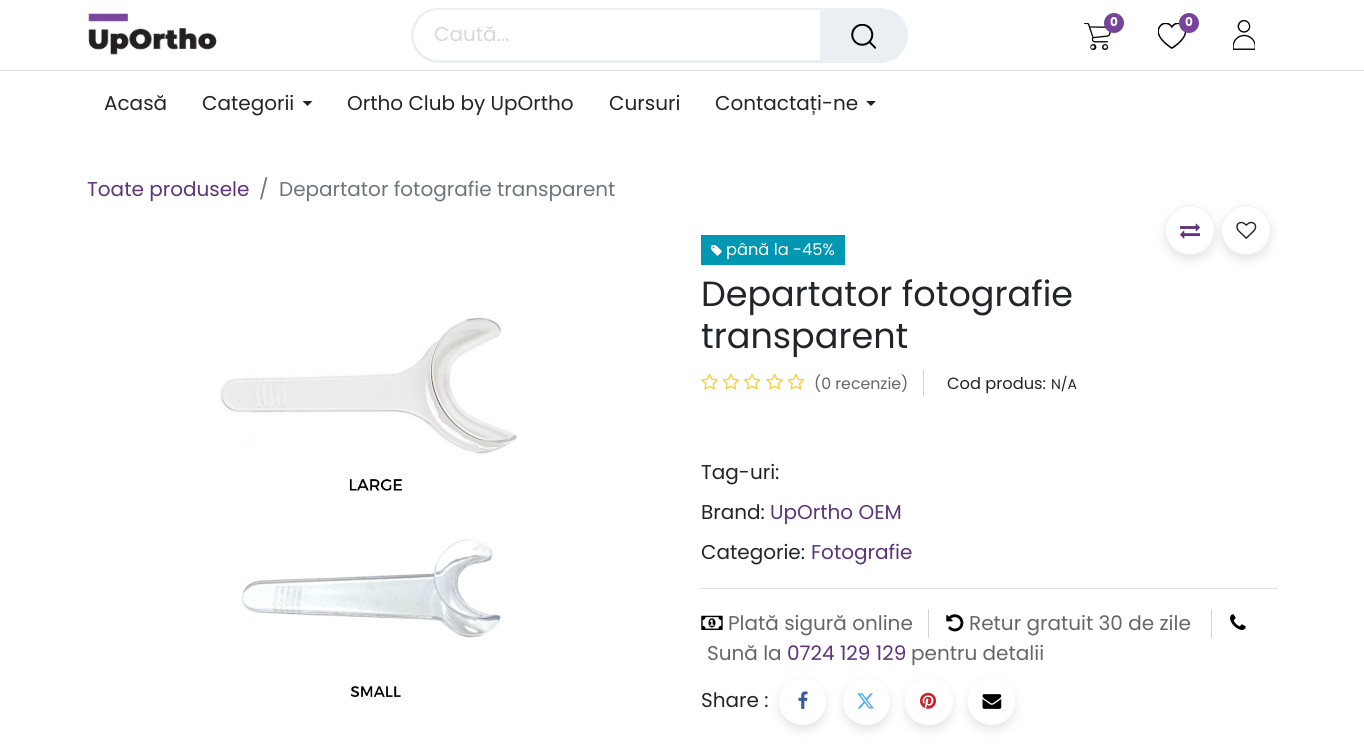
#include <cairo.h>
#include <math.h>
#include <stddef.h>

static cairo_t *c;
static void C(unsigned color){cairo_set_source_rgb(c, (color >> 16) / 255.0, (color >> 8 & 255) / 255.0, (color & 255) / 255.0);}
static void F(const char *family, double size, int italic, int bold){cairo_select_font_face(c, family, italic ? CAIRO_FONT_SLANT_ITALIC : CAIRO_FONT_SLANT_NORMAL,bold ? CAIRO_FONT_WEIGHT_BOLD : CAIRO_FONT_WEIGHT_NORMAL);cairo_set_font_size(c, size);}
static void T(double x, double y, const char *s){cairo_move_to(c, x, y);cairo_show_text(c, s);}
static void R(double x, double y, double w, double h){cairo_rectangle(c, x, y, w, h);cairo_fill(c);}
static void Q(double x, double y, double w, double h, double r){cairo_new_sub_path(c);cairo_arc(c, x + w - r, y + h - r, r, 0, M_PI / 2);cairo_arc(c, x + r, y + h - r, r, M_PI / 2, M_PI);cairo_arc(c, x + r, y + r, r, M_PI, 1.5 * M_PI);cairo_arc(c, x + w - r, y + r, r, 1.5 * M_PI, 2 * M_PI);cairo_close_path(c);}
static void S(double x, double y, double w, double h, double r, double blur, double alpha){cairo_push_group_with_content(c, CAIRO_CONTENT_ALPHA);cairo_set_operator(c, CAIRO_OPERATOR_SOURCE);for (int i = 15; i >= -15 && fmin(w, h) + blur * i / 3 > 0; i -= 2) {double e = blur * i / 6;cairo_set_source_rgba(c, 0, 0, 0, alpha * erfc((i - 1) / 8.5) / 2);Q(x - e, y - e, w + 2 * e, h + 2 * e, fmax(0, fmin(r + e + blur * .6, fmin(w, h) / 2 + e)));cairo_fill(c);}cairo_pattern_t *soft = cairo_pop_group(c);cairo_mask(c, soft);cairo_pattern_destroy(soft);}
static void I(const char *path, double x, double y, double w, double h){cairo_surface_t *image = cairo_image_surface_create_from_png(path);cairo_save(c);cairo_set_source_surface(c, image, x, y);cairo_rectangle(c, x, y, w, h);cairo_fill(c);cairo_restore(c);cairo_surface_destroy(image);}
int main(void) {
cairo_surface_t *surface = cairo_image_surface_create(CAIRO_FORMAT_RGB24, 1364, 746);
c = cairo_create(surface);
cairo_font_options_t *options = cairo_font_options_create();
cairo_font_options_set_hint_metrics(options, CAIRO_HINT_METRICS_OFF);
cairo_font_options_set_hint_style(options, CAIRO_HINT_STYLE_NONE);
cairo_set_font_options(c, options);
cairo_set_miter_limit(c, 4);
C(0xffffff);
cairo_paint(c);
I("1.png",87,13,130,42);
I("2.png",1084,23,27,27);
C(0x78449b);
cairo_arc(c,1114,23,10,0,2 * M_PI);
cairo_fill(c);
F("Poppins",12,0,1);
C(0xffffff);
T(1110,26,"0");
I("3.png",1158,23,28,26);
C(0x78449b);
cairo_arc(c,1189,23,10,0,2 * M_PI);
cairo_fill(c);
C(0xffffff);
T(1185,26,"0");
I("4.png",1233,20,22,30);
Q(412.5,9.5,494,52,26);
C(0xeaeff3);
cairo_set_line_width(c,3);
cairo_stroke(c);
C(0xffffff);
Q(414,10,491,50,25);
cairo_fill(c);
F("Poppins",20,0,0);
C(0xd8d8d8);
T(434,41,"Caută...");
C(0xeaeff3);
cairo_new_path(c);
cairo_move_to(c,820.5,10.5);
cairo_line_to(c,883,10.5);
cairo_curve_to(c,896.5,10.5,907.5,21.5,907.5,35);
cairo_curve_to(c,907.5,48.5,896.5,59.5,883,59.5);
cairo_line_to(c,820.5,59.5);
cairo_close_path(c);
cairo_fill_preserve(c);
cairo_set_line_width(c,1);
cairo_stroke(c);
I("5.png",851,24,25,25);
C(0xdededf);
R(0,70,1364,1);
C(0x212529);
T(104,110,"Acasă");
T(202,110,"Categorii");
cairo_new_path(c);
cairo_move_to(c,302.5,101);
cairo_line_to(c,312.5,101);
cairo_line_to(c,307.5,106);
cairo_close_path(c);
cairo_fill(c);
T(347,110,"Ortho Club by UpOrtho");
T(609,110,"Cursuri");
T(715,110,"Contactați-ne");
cairo_new_path(c);
cairo_move_to(c,866,101);
cairo_line_to(c,876,101);
cairo_line_to(c,871,106);
cairo_close_path(c);
cairo_fill(c);
C(0x5d3478);
T(87,196,"Toate produsele");
C(0x6c757d);
T(259,196,"/");
T(279,196,"Departator fotografie transparent");
I("6.png",219,317,298,381);
C(0x0097b2);
R(701,235,144,30);
I("7.png",711,245,11,11);
F("Poppins",16.25,0,0);
C(0xffffff);
T(726,255,"până la -45%");
F("Poppins",35,0,0);
C(0x212529);
T(701,306,"Departator fotografie");
T(701,348,"transparent");
C(0xd3d3d3);
R(923,370,1,26);
I("8.png",701,373,17,17);
I("9.png",722,373,18,17);
I("10.png",743,373,18,17);
I("8.png",766,373,17,17);
I("9.png",787,373,18,17);
F("Poppins",15.75,0,0);
C(0x646669);
T(814,389,"(0 recenzie)");
F("Poppins",16.25,0,0);
C(0x212529);
T(947,389,"Cod produs:");
F("Poppins",14,0,0);
T(1051,389,"N/A");
C(0x000000);
S(1165,210,50,50,25,5,.1);
C(0xffffff);
cairo_arc(c,1190,230,24.5,0,2 * M_PI);
cairo_fill_preserve(c);
C(0xf0f0f0);
cairo_stroke(c);
I("11.png",1180,223,20,16);
C(0x000000);
S(1221,210,50,50,25,5,.1);
C(0xffffff);
cairo_arc(c,1246,230,24.5,0,2 * M_PI);
cairo_fill_preserve(c);
C(0xf0f0f0);
cairo_stroke(c);
I("12.png",1236,221,21,18);
F("Poppins",20,0,0);
C(0x212529);
T(701,479,"Tag-uri:");
T(701,519,"Brand:");
C(0x5d3478);
T(770,519,"UpOrtho OEM");
C(0x212529);
T(701,559,"Categorie:");
C(0x5d3478);
T(811,559,"Fotografie");
C(0xdededf);
R(701,588,577,1);
C(0xd3d3d3);
R(928,609,1,29);
I("13.png",701,615,22,15);
C(0x646669);
T(728,630,"Plată sigură online");
C(0xd3d3d3);
R(1211,609,1,29);
I("14.png",946,614,18,18);
C(0x646669);
T(969,630,"Retur gratuit 30 de zile");
I("15.png",1230,614,16,16);
T(707,660,"Sună la");
C(0x5d3478);
T(787,660,"0724 129 129");
C(0x646669);
T(911,660,"pentru detalii");
C(0x212529);
T(701,707,"Share :");
C(0x000000);
S(779,683,47,47,23.5,5,.1);
C(0xffffff);
cairo_arc(c,802.5,701.5,23.5,0,2 * M_PI);
cairo_fill(c);
I("16.png",798,691,10,18);
C(0x000000);
S(843,683,47,47,23.5,5,.1);
C(0xffffff);
cairo_arc(c,866.5,701.5,23.5,0,2 * M_PI);
cairo_fill(c);
I("17.png",857,693,17,16);
C(0x000000);
S(905,683,48,47,23.5,5,.1);
C(0xffffff);
Q(905,678,48,47,23.5);
cairo_fill(c);
I("18.png",920,692,17,17);
C(0x000000);
S(968,683,47,47,23.5,5,.1);
C(0xffffff);
cairo_arc(c,991.5,701.5,23.5,0,2 * M_PI);
cairo_fill(c);
I("19.png",982,694,20,15);
cairo_surface_write_to_png(surface, "o.png");
cairo_font_options_destroy(options);
cairo_destroy(c);
cairo_surface_destroy(surface);
return 0;
}
